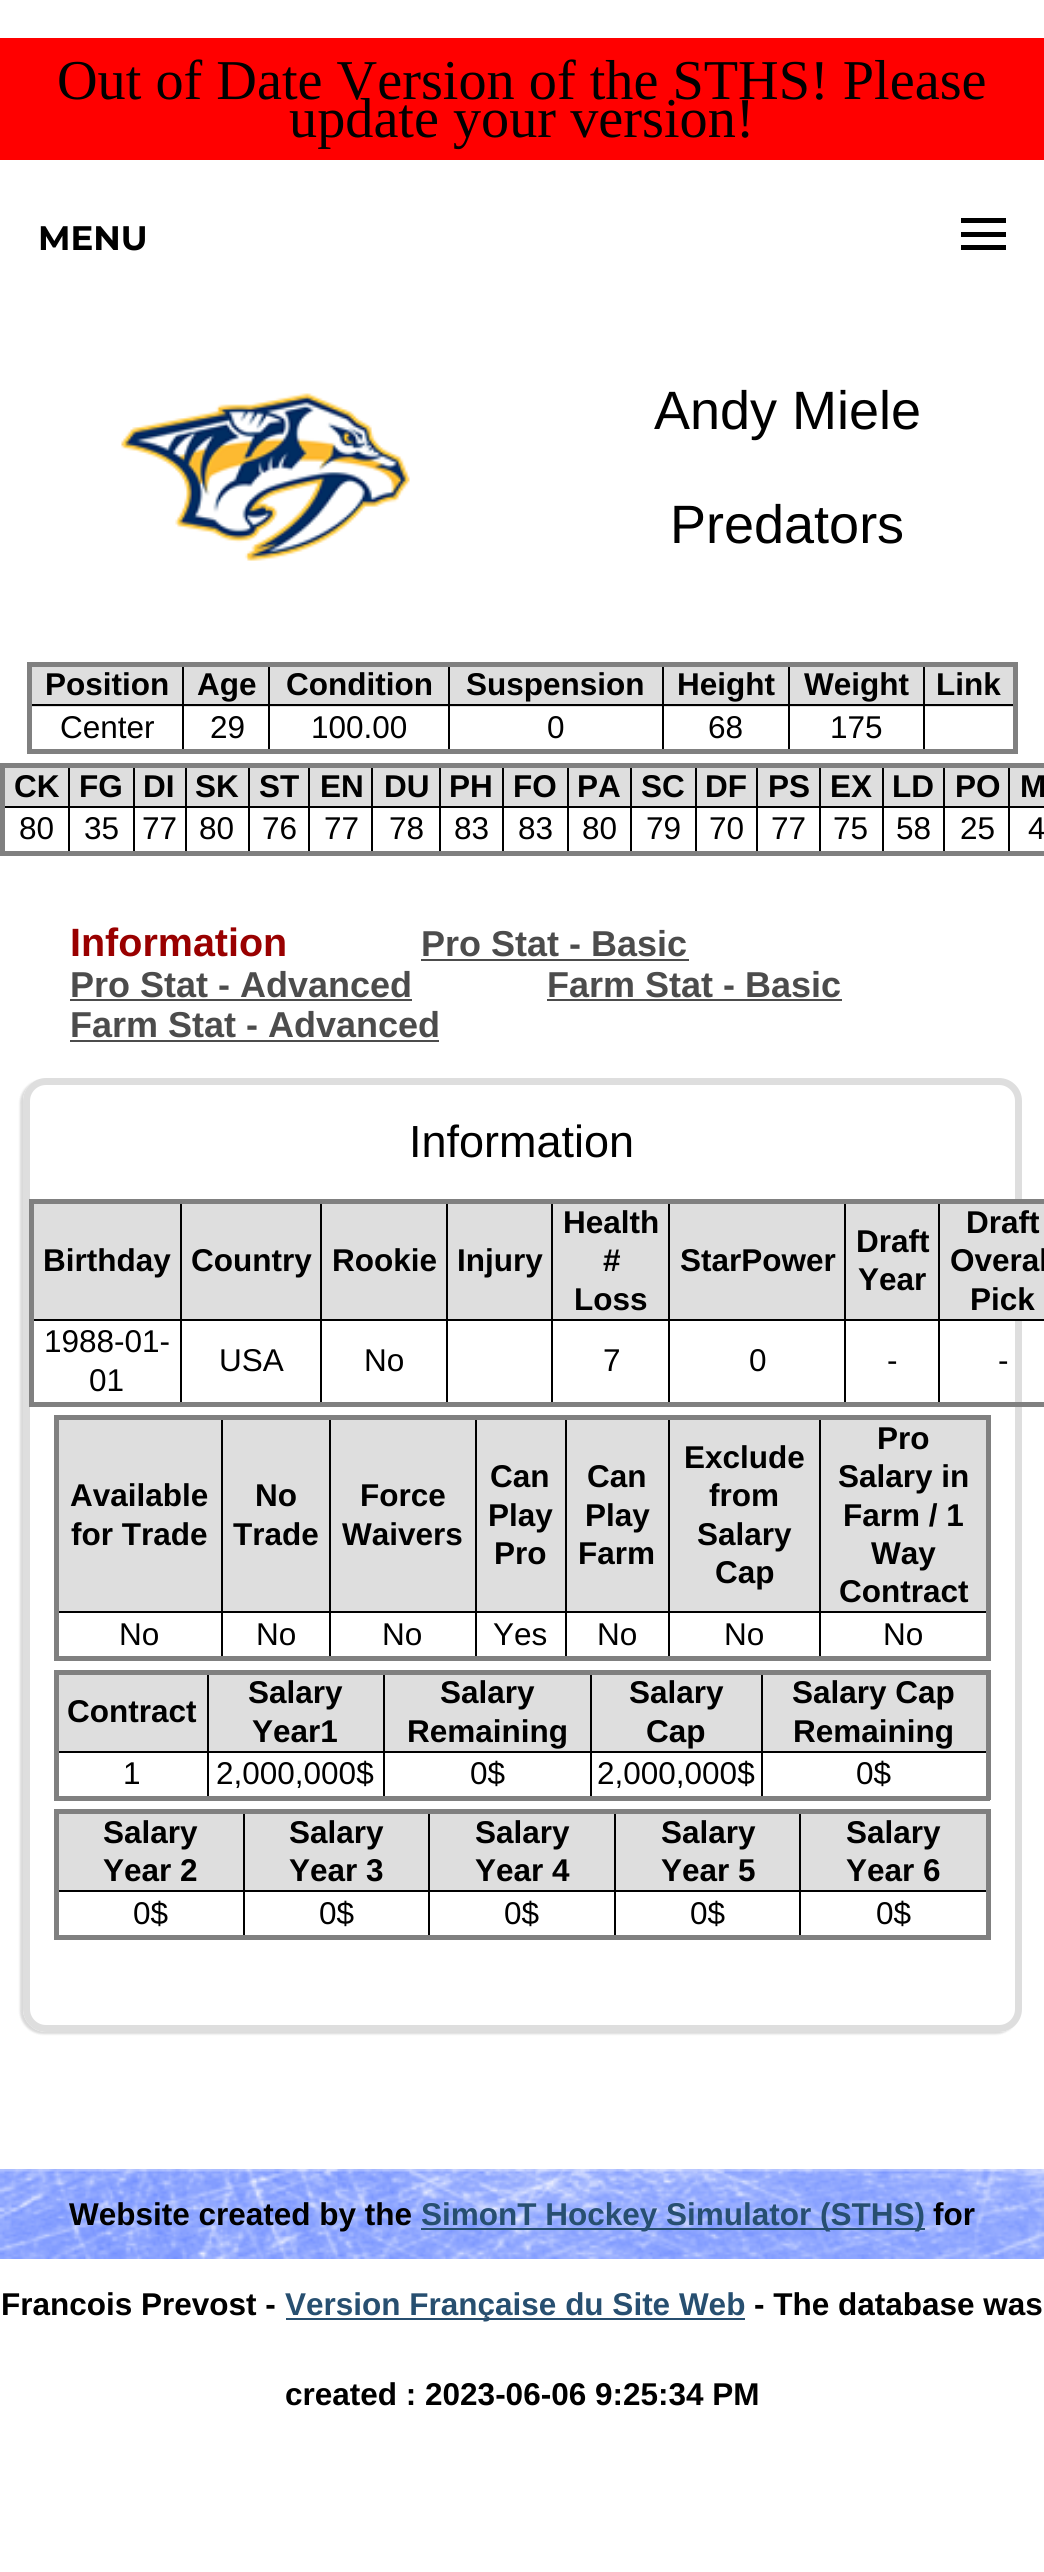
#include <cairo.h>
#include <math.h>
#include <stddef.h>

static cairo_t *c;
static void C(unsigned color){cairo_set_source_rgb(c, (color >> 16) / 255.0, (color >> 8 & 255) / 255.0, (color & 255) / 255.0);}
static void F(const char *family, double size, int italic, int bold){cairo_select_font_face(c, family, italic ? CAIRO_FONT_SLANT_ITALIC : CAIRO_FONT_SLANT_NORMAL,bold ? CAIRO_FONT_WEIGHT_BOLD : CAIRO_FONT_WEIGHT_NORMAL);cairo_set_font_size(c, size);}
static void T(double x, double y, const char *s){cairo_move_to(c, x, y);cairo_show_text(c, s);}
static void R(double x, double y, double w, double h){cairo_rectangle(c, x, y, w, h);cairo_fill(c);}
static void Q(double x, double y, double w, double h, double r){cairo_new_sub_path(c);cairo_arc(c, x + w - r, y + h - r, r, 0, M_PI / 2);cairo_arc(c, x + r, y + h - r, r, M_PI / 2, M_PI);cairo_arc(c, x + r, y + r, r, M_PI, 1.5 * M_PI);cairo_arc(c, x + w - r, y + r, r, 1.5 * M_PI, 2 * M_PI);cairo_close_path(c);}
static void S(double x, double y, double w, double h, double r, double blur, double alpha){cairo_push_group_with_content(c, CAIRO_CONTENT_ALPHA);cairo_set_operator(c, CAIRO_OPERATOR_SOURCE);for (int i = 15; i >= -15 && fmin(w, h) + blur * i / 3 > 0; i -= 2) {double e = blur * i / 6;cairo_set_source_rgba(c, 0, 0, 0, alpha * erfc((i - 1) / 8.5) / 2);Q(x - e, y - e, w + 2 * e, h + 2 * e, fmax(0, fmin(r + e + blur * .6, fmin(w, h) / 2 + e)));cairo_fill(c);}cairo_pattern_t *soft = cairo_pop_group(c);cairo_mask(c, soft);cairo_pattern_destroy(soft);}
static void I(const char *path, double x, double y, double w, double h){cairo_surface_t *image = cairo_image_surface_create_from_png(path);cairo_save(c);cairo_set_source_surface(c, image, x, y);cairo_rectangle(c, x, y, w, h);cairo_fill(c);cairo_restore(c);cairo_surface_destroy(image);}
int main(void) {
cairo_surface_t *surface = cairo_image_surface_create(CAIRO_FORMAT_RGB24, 1044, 2572);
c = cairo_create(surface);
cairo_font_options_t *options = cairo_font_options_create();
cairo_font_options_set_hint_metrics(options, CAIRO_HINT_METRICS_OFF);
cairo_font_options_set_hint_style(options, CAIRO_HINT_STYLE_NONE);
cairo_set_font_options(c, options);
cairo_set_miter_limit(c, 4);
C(0xffffff);
cairo_paint(c);
C(0xff0000);
R(0,38,1044,122);
F("Liberation Serif",56.25,0,0);
C(0x000000);
T(57,99,"Out of Date Version of the STHS! Please");
T(289,137,"update your version!");
R(961,218,45,5);
F("Montserrat",34,0,1);
T(38,250,"MENU");
R(961,232,45,5);
R(961,245,45,5);
I("1.png",121,393,289,168);
F("Liberation Sans",54,0,0);
T(654,429,"Andy Miele");
T(670,543,"Predators");
C(0xdedede);
R(32,667,236,40);
R(270,667,178,40);
R(450,667,212,40);
R(664,667,124,40);
R(790,667,133,40);
R(925,667,88,40);
C(0x000000);
R(923,704,94,2);
R(923,704,2,50);
R(788,704,137,2);
R(788,704,2,50);
R(662,704,128,2);
R(662,704,2,50);
R(448,704,216,2);
R(448,704,2,50);
R(268,704,182,2);
R(268,704,2,50);
R(182,704,88,2);
R(182,704,2,50);
R(27,704,158,2);
R(182,664,2,43);
R(268,664,2,43);
R(448,664,2,43);
R(662,664,2,43);
R(788,664,2,43);
R(923,664,2,43);
C(0x808080);
R(27,662,990,5);
R(1013,662,5,92);
R(27,749,990,5);
R(27,662,5,92);
F("Liberation Sans",31.5,0,1);
C(0x000000);
T(45,695,"Position");
T(197,695,"Age");
T(286,695,"Condition");
T(466,695,"Suspension");
T(677,695,"Height");
T(804,695,"Weight");
T(936,695,"Link");
F("Liberation Sans",31.5,0,0);
T(60,738,"Center");
T(210,738,"29");
T(311,738,"100.00");
T(547,738,"0");
T(708,738,"68");
T(830,738,"175");
R(1008,806,36,2);
R(1008,806,2,49);
R(943,806,67,2);
R(943,806,2,49);
R(882,806,63,2);
R(882,806,2,49);
R(819,806,65,2);
R(819,806,2,49);
R(756,806,65,2);
R(756,806,2,49);
R(695,806,63,2);
R(695,806,2,49);
R(630,806,68,2);
R(630,806,2,49);
R(567,806,65,2);
R(567,806,2,49);
R(502,806,67,2);
R(502,806,2,49);
R(439,806,65,2);
R(439,806,2,49);
R(371,806,70,2);
R(371,806,2,49);
R(308,806,66,2);
R(308,806,2,49);
R(248,806,63,2);
R(248,806,2,49);
R(185,806,65,2);
R(185,806,2,49);
R(133,806,54,2);
R(133,806,2,49);
R(68,806,67,2);
R(68,806,2,49);
R(2,806,68,2);
R(68,765,2,43);
R(133,765,2,43);
R(185,765,2,43);
R(248,765,2,43);
C(0xdedede);
R(250,768,189,38);
C(0x000000);
R(308,765,2,43);
R(371,765,2,43);
R(439,765,2,43);
R(502,765,2,43);
R(567,765,2,43);
R(630,765,2,43);
R(695,765,2,43);
R(756,765,2,43);
R(819,765,2,43);
R(882,765,2,43);
R(943,765,2,43);
R(1008,765,2,43);
C(0x808080);
R(0,763,1044,5);
R(0,851,1044,5);
R(0,763,5,92);
C(0xdedede);
R(5,768,63,38);
F("Liberation Sans",31.5,0,1);
C(0x000000);
T(14,797,"CK");
C(0xdedede);
R(70,768,63,38);
C(0x000000);
T(79,797,"FG");
C(0xdedede);
R(135,768,50,38);
C(0x000000);
T(143,797,"DI");
C(0xdedede);
R(187,768,61,38);
C(0x000000);
T(195,797,"SK");
T(259,797,"ST");
T(320,797,"EN");
T(384,797,"DU");
C(0xdedede);
R(441,768,61,38);
C(0x000000);
T(449,797,"PH");
C(0xdedede);
R(504,768,63,38);
C(0x000000);
T(513,797,"FO");
C(0xdedede);
R(569,768,61,38);
C(0x000000);
T(577,797,"PA");
C(0xdedede);
R(632,768,63,38);
C(0x000000);
T(641,797,"SC");
C(0xdedede);
R(697,768,59,38);
C(0x000000);
T(705,797,"DF");
C(0xdedede);
R(758,768,61,38);
C(0x000000);
T(768,797,"PS");
C(0xdedede);
R(821,768,61,38);
C(0x000000);
T(830,797,"EX");
C(0xdedede);
R(884,768,59,38);
C(0x000000);
T(892,797,"LD");
C(0xdedede);
R(945,768,63,38);
C(0x000000);
T(955,797,"PO");
C(0xdedede);
R(1010,768,34,38);
C(0x000000);
T(1020,797,"M");
F("Liberation Sans",31.5,0,0);
T(19,839,"80");
T(84,839,"35");
T(142,839,"77");
T(199,839,"80");
T(262,839,"76");
T(324,839,"77");
T(389,839,"78");
T(454,839,"83");
T(518,839,"83");
T(582,839,"80");
T(646,839,"79");
T(709,839,"70");
T(771,839,"77");
T(833,839,"75");
T(896,839,"58");
T(960,839,"25");
T(1028,839,"4");
F("Liberation Sans",39.5,0,1);
C(0x990000);
T(70,956,"Information");
F("Liberation Sans",36,0,1);
C(0x4c4c4c);
T(421,956,"Pro Stat - Basic");
R(421,959,268,2);
T(70,997,"Pro Stat - Advanced");
R(70,999,342,2);
T(547,997,"Farm Stat - Basic");
R(547,999,295,2);
T(70,1037,"Farm Stat - Advanced");
R(70,1040,369,2);
cairo_save(c);
cairo_set_fill_rule(c,CAIRO_FILL_RULE_EVEN_ODD);
cairo_new_path(c);
cairo_move_to(c,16,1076);
cairo_line_to(c,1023,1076);
cairo_line_to(c,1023,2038);
cairo_line_to(c,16,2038);
cairo_close_path(c);
cairo_move_to(c,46,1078);
cairo_line_to(c,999,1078);
cairo_curve_to(c,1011.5,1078,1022,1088.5,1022,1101);
cairo_line_to(c,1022,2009);
cairo_curve_to(c,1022,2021.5,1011.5,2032,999,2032);
cairo_line_to(c,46,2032);
cairo_curve_to(c,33.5,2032,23,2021.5,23,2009);
cairo_line_to(c,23,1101);
cairo_curve_to(c,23,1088.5,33.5,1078,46,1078);
cairo_close_path(c);
cairo_clip(c);
C(0x000000);
S(20,1080,999,954,23,1,.15);
cairo_restore(c);
Q(26.5,1081.5,992,947,19.5);
C(0xdedede);
cairo_set_line_width(c,7);
cairo_stroke(c);
F("Liberation Sans",45,0,0);
C(0x000000);
T(409,1157,"Information");
R(938,1319,106,2);
R(938,1319,2,87);
R(844,1319,97,2);
R(844,1319,2,87);
R(668,1319,178,2);
R(668,1319,2,87);
R(551,1319,120,2);
R(551,1319,2,87);
R(446,1319,108,2);
R(446,1319,2,87);
R(320,1319,128,2);
R(320,1319,2,87);
R(180,1319,142,2);
R(180,1319,2,87);
R(32,1319,150,2);
R(180,1202,2,119);
R(320,1202,2,119);
R(446,1202,2,119);
C(0xdedede);
R(448,1204,396,115);
C(0x000000);
R(551,1202,2,119);
R(668,1202,2,119);
R(844,1202,2,119);
C(0xdedede);
R(846,1204,198,115);
C(0x000000);
R(938,1202,2,119);
C(0x808080);
R(29,1199,1015,5);
R(29,1402,1015,5);
R(29,1199,5,207);
C(0xdedede);
R(34,1204,146,115);
F("Liberation Sans",31.5,0,1);
C(0x000000);
T(43,1271,"Birthday");
C(0xdedede);
R(182,1204,138,115);
C(0x000000);
T(191,1271,"Country");
C(0xdedede);
R(322,1204,124,115);
C(0x000000);
T(332,1271,"Rookie");
T(457,1271,"Injury");
T(563,1233,"Health");
T(603,1271,"#");
T(574,1310,"Loss");
T(680,1271,"StarPower");
T(856,1252,"Draft");
T(858,1290,"Year");
T(966,1233,"Draft");
T(950,1271,"Overal");
T(970,1310,"Pick");
F("Liberation Sans",31.5,0,0);
T(44,1352,"1988-01-");
T(89,1391,"01");
T(219,1371,"USA");
T(364,1371,"No");
T(603,1371,"7");
T(749,1371,"0");
T(887,1371,"-");
T(998,1371,"-");
R(819,1611,171,2);
R(819,1611,2,50);
R(668,1611,153,2);
R(668,1611,2,50);
R(565,1611,106,2);
R(565,1611,2,50);
R(475,1611,92,2);
R(475,1611,2,50);
R(329,1611,148,2);
R(329,1611,2,50);
R(221,1611,110,2);
R(221,1611,2,50);
R(54,1611,169,2);
R(221,1418,2,195);
R(329,1418,2,195);
R(475,1418,2,195);
R(565,1418,2,195);
R(668,1418,2,195);
R(819,1418,2,195);
C(0x808080);
R(54,1415,936,5);
R(986,1415,5,246);
R(54,1656,936,5);
R(54,1415,5,246);
C(0xdedede);
R(59,1420,162,191);
F("Liberation Sans",31.5,0,1);
C(0x000000);
T(70,1506,"Available");
T(71,1545,"for Trade");
C(0xdedede);
R(223,1420,106,191);
C(0x000000);
T(255,1506,"No");
T(233,1545,"Trade");
C(0xdedede);
R(331,1420,144,191);
C(0x000000);
T(360,1506,"Force");
T(342,1545,"Waivers");
C(0xdedede);
R(477,1420,88,191);
C(0x000000);
T(490,1487,"Can");
T(488,1526,"Play");
T(494,1564,"Pro");
C(0xdedede);
R(567,1420,101,191);
C(0x000000);
T(587,1487,"Can");
T(585,1526,"Play");
T(578,1564,"Farm");
C(0xdedede);
R(670,1420,149,191);
C(0x000000);
T(684,1468,"Exclude");
T(709,1506,"from");
T(697,1545,"Salary");
T(715,1583,"Cap");
C(0xdedede);
R(821,1420,165,191);
C(0x000000);
T(877,1449,"Pro");
T(838,1487,"Salary in");
T(843,1526,"Farm / 1");
T(871,1564,"Way");
T(839,1602,"Contract");
F("Liberation Sans",31.5,0,0);
T(119,1645,"No");
T(256,1645,"No");
T(382,1645,"No");
T(493,1645,"Yes");
T(597,1645,"No");
T(724,1645,"No");
T(883,1645,"No");
R(761,1751,229,2);
R(761,1751,2,49);
R(590,1751,173,2);
R(590,1751,2,49);
R(383,1751,209,2);
R(383,1751,2,49);
R(207,1751,178,2);
R(207,1751,2,49);
R(54,1751,155,2);
R(207,1672,2,81);
R(383,1672,2,81);
R(590,1672,2,81);
R(761,1672,2,81);
C(0x808080);
R(54,1670,936,5);
R(986,1670,5,130);
R(54,1796,936,5);
R(54,1670,5,130);
C(0xdedede);
R(59,1675,148,76);
F("Liberation Sans",31.5,0,1);
C(0x000000);
T(67,1722,"Contract");
C(0xdedede);
R(209,1675,174,76);
C(0x000000);
T(248,1703,"Salary");
T(252,1742,"Year1");
C(0xdedede);
R(385,1675,205,76);
C(0x000000);
T(440,1703,"Salary");
T(407,1742,"Remaining");
C(0xdedede);
R(592,1675,169,76);
C(0x000000);
T(629,1703,"Salary");
T(646,1742,"Cap");
C(0xdedede);
R(763,1675,223,76);
C(0x000000);
T(792,1703,"Salary Cap");
T(793,1742,"Remaining");
F("Liberation Sans",31.5,0,0);
T(123,1784,"1");
T(216,1784,"2,000,000$");
T(470,1784,"0$");
T(597,1784,"2,000,000$");
T(856,1784,"0$");
R(799,1890,191,2);
R(799,1890,2,50);
R(614,1890,187,2);
R(614,1890,2,50);
R(428,1890,189,2);
R(428,1890,2,50);
R(243,1890,187,2);
R(243,1890,2,50);
R(54,1890,191,2);
R(243,1811,2,81);
R(428,1811,2,81);
R(614,1811,2,81);
R(799,1811,2,81);
C(0x808080);
R(54,1809,936,5);
R(986,1809,5,131);
R(54,1935,936,5);
R(54,1809,5,131);
C(0xdedede);
R(59,1814,184,76);
F("Liberation Sans",31.5,0,1);
C(0x000000);
T(103,1843,"Salary");
T(103,1881,"Year 2");
C(0xdedede);
R(245,1814,183,76);
C(0x000000);
T(289,1843,"Salary");
T(289,1881,"Year 3");
C(0xdedede);
R(430,1814,184,76);
C(0x000000);
T(475,1843,"Salary");
T(475,1881,"Year 4");
C(0xdedede);
R(616,1814,183,76);
C(0x000000);
T(661,1843,"Salary");
T(661,1881,"Year 5");
C(0xdedede);
R(801,1814,185,76);
C(0x000000);
T(846,1843,"Salary");
T(846,1881,"Year 6");
F("Liberation Sans",31.5,0,0);
T(133,1924,"0$");
T(319,1924,"0$");
T(504,1924,"0$");
T(690,1924,"0$");
T(876,1924,"0$");
I("2.png",0,2169,1044,90);
F("Liberation Sans",31.5,0,1);
T(69,2225,"Website created by the");
C(0x274f70);
R(421,2228,504,2);
T(421,2225,"SimonT Hockey Simulator (STHS)");
C(0x000000);
T(933,2225,"for");
T(1,2315,"Francois Prevost -");
C(0x274f70);
R(286,2318,459,2);
T(285,2315,"Version Française du Site Web");
C(0x000000);
T(754,2315,"- The database was");
T(285,2405,"created : 2023-06-06 9:25:34 PM");
cairo_surface_write_to_png(surface, "o.png");
cairo_font_options_destroy(options);
cairo_destroy(c);
cairo_surface_destroy(surface);
return 0;
}
